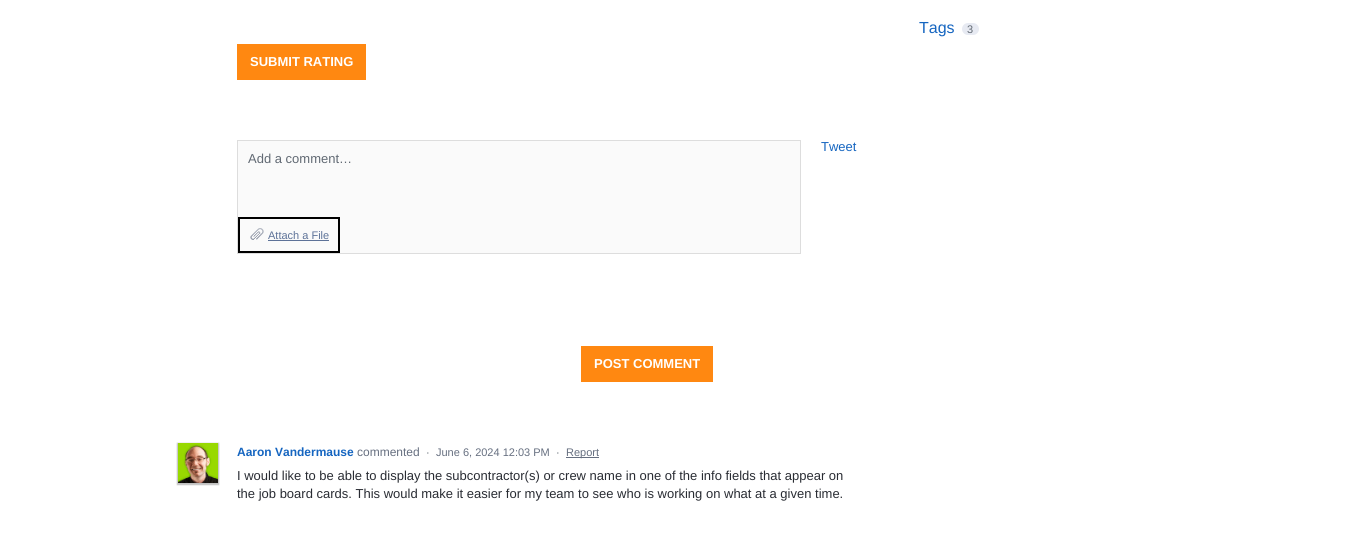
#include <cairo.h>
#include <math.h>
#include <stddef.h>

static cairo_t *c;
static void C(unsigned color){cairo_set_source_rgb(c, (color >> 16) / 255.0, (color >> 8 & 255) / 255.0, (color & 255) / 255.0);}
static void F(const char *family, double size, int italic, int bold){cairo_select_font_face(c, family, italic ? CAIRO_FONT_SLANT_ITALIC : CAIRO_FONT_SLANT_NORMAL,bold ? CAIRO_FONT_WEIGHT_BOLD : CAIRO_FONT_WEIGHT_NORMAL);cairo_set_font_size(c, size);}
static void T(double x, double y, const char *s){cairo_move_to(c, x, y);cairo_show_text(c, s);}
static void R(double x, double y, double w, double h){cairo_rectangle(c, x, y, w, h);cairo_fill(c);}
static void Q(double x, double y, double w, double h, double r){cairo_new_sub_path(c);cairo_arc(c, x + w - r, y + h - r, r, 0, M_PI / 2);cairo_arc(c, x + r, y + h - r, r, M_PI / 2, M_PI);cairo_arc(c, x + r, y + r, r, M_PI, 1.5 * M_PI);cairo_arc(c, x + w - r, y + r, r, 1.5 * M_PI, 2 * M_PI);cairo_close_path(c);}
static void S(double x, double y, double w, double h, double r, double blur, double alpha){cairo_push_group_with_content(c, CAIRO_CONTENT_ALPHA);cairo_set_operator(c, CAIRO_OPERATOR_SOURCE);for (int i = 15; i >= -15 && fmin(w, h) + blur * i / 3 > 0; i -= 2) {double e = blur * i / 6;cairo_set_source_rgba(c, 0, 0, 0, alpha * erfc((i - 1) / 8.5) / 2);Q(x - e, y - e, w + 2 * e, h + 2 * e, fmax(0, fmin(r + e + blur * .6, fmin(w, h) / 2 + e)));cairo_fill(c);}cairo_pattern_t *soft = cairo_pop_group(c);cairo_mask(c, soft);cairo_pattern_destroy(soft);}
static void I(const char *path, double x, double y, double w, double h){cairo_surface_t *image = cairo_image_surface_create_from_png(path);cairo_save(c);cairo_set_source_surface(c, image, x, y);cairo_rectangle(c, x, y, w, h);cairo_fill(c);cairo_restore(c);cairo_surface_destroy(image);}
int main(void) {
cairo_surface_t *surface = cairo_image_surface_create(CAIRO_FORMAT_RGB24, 1362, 542);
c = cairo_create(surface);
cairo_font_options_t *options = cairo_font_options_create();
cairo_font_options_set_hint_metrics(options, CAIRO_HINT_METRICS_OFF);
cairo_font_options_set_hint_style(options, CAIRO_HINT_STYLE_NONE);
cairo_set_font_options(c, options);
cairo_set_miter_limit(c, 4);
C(0xffffff);
cairo_paint(c);
F("Liberation Sans",16,0,0);
C(0x1565c0);
T(919,33,"Tags");
C(0xe7eaf2);
Q(962,23,17,12,6);
cairo_fill(c);
F("Liberation Sans",11,0,0);
C(0x616973);
T(967,33,"3");
C(0xff8811);
R(237,44,129,36);
F("Liberation Sans",13,0,1);
C(0xffffff);
T(250,66,"SUBMIT RATING");
F("Liberation Sans",13,0,0);
C(0x1565c0);
T(821,151,"Tweet");
C(0xfafafa);
cairo_rectangle(c,237.5,140.5,563,113);
cairo_fill_preserve(c);
C(0xdddddd);
cairo_set_line_width(c,1);
cairo_stroke(c);
C(0x616973);
T(248,163,"Add a comment…");
I("1.png",250,228,14,12);
cairo_rectangle(c,239,218,100,34);
C(0x000000);
cairo_set_line_width(c,2);
cairo_stroke(c);
F("Liberation Sans",11,0,0);
C(0x5d7298);
T(268,239,"Attach a File");
R(268,240,61,1);
C(0xff8811);
R(581,346,132,36);
F("Liberation Sans",13,0,1);
C(0xffffff);
T(594,368,"POST COMMENT");
C(0x000000);
S(177,443,42,42,0,.5,.25);
I("2.png",178,443,40,40);
F("Liberation Sans",12,0,1);
C(0x1565c0);
T(237,456,"Aaron Vandermause");
F("Liberation Sans",12,0,0);
C(0x666f80);
T(357,456,"commented");
F("Liberation Sans",11,0,0);
C(0x616973);
T(426,456,"·");
C(0x666f80);
T(436,456,"June 6, 2024 12:03 PM");
C(0x616973);
T(556,456,"·");
C(0x666f80);
R(566,457,33,1);
T(566,456,"Report");
F("Liberation Sans",13,0,0);
C(0x292c33);
T(237,480,"I would like to be able to display the subcontractor(s) or crew name in one of the info fields that appear on");
T(237,498,"the job board cards. This would make it easier for my team to see who is working on what at a given time.");
cairo_surface_write_to_png(surface, "o.png");
cairo_font_options_destroy(options);
cairo_destroy(c);
cairo_surface_destroy(surface);
return 0;
}
